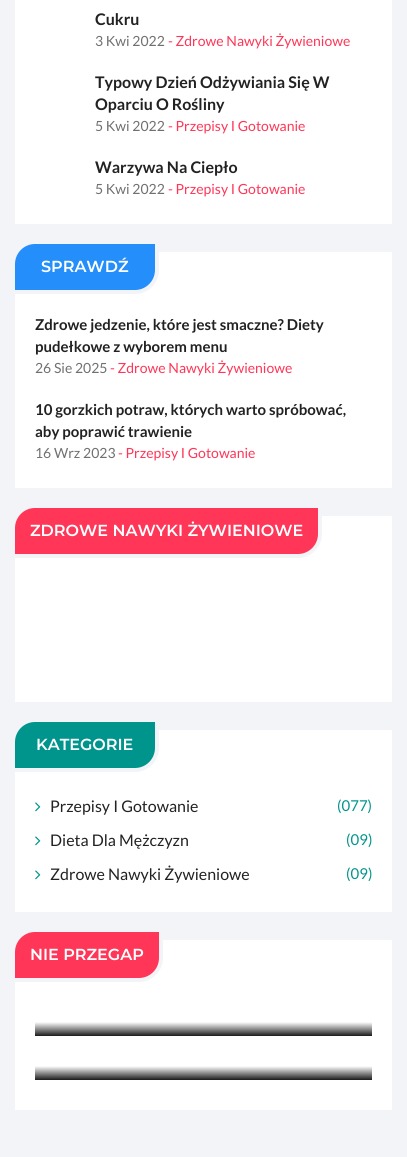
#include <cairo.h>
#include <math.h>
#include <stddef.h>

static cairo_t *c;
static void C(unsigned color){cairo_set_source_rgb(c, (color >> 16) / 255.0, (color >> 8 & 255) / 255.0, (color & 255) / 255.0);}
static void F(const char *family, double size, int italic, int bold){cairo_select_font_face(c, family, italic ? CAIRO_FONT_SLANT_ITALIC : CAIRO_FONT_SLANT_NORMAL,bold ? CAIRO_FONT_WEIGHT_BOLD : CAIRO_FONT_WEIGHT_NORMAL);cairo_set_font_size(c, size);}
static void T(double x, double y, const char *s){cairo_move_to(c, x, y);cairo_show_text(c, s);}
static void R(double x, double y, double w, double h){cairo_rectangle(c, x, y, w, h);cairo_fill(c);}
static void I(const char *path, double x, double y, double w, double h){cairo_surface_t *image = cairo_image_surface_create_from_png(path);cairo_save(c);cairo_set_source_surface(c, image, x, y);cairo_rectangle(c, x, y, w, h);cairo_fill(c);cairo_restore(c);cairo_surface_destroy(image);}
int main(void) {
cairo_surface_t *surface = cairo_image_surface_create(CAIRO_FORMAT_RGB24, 407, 1157);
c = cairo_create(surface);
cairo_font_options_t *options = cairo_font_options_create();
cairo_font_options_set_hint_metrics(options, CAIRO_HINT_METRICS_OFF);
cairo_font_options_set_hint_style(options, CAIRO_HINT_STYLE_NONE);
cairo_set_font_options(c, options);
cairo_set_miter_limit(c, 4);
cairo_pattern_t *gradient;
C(0xf3f4f7);
cairo_paint(c);
C(0xffffff);
R(15,0,377,224);
F("Lato",16,0,1);
C(0x222222);
T(95,25,"Cukru");
F("Lato",14,0,0);
C(0x707070);
T(95,46,"3 Kwi 2022");
C(0xff3657);
T(168,46,"- Zdrowe Nawyki Żywieniowe");
F("Lato",16,0,1);
C(0x222222);
T(95,88,"Typowy Dzień Odżywiania Się W");
T(95,110,"Oparciu O Rośliny");
F("Lato",14,0,0);
C(0x707070);
T(95,131,"5 Kwi 2022");
C(0xff3657);
T(168,131,"- Przepisy I Gotowanie");
F("Lato",16,0,1);
C(0x222222);
T(95,173,"Warzywa Na Ciepło");
F("Lato",14,0,0);
C(0x707070);
T(95,194,"5 Kwi 2022");
C(0xff3657);
T(168,194,"- Przepisy I Gotowanie");
C(0xffffff);
R(15,252,377,236);
cairo_new_path(c);
cairo_move_to(c,35,242);
cairo_line_to(c,157,242);
cairo_line_to(c,157,270);
cairo_curve_to(c,157,282,147,292,135,292);
cairo_line_to(c,13,292);
cairo_line_to(c,13,264);
cairo_curve_to(c,13,252,23,242,35,242);
cairo_close_path(c);
C(0xf3f4f7);
cairo_set_line_width(c,4);
cairo_stroke(c);
C(0x248efa);
cairo_new_path(c);
cairo_move_to(c,35,244);
cairo_line_to(c,155,244);
cairo_line_to(c,155,270);
cairo_curve_to(c,155,281,146,290,135,290);
cairo_line_to(c,15,290);
cairo_line_to(c,15,264);
cairo_curve_to(c,15,253,24,244,35,244);
cairo_close_path(c);
cairo_fill(c);
F("Montserrat SemiBold",16,0,0);
C(0xffffff);
T(41,272,"SPRAWDŹ");
F("Lato",15,0,1);
C(0x222222);
T(35,330,"Zdrowe jedzenie, które jest smaczne? Diety");
T(35,352,"pudełkowe z wyborem menu");
F("Lato",14,0,0);
C(0x707070);
T(35,373,"26 Sie 2025");
C(0xff3657);
T(110,373,"- Zdrowe Nawyki Żywieniowe");
F("Lato",15,0,1);
C(0x222222);
T(35,415,"10 gorzkich potraw, których warto spróbować,");
T(35,437,"aby poprawić trawienie");
F("Lato",14,0,0);
C(0x707070);
T(35,458,"16 Wrz 2023");
C(0xff3657);
T(118,458,"- Przepisy I Gotowanie");
C(0xffffff);
R(15,516,377,186);
cairo_new_path(c);
cairo_move_to(c,35,506);
cairo_line_to(c,320,506);
cairo_line_to(c,320,534);
cairo_curve_to(c,320,546,310,556,298,556);
cairo_line_to(c,13,556);
cairo_line_to(c,13,528);
cairo_curve_to(c,13,516,23,506,35,506);
cairo_close_path(c);
C(0xf3f4f7);
cairo_stroke(c);
C(0xff3657);
cairo_new_path(c);
cairo_move_to(c,35,508);
cairo_line_to(c,318,508);
cairo_line_to(c,318,534);
cairo_curve_to(c,318,545,309,554,298,554);
cairo_line_to(c,15,554);
cairo_line_to(c,15,528);
cairo_curve_to(c,15,517,24,508,35,508);
cairo_close_path(c);
cairo_fill(c);
F("Montserrat SemiBold",16,0,0);
C(0xffffff);
T(30,536,"ZDROWE NAWYKI ŻYWIENIOWE");
R(15,730,377,182);
cairo_new_path(c);
cairo_move_to(c,35,720);
cairo_line_to(c,157,720);
cairo_line_to(c,157,748);
cairo_curve_to(c,157,760,147,770,135,770);
cairo_line_to(c,13,770);
cairo_line_to(c,13,742);
cairo_curve_to(c,13,730,23,720,35,720);
cairo_close_path(c);
C(0xf3f4f7);
cairo_stroke(c);
C(0x00958c);
cairo_new_path(c);
cairo_move_to(c,35,722);
cairo_line_to(c,155,722);
cairo_line_to(c,155,748);
cairo_curve_to(c,155,759,146,768,135,768);
cairo_line_to(c,15,768);
cairo_line_to(c,15,742);
cairo_curve_to(c,15,731,24,722,35,722);
cairo_close_path(c);
cairo_fill(c);
C(0xffffff);
T(36,750,"KATEGORIE");
I("1.png",35,802,6,10);
F("Lato",16,0,0);
C(0x222222);
T(50,812,"Przepisy I Gotowanie");
F("Lato",15,0,0);
C(0x00958c);
T(337,811,"(077)");
I("1.png",35,836,6,10);
F("Lato",16,0,0);
C(0x222222);
T(50,846,"Dieta Dla Mężczyzn");
F("Lato",15,0,0);
C(0x00958c);
T(346,845,"(09)");
I("1.png",35,870,6,10);
F("Lato",16,0,0);
C(0x222222);
T(50,880,"Zdrowe Nawyki Żywieniowe");
F("Lato",15,0,0);
C(0x00958c);
T(346,879,"(09)");
C(0xffffff);
R(15,940,377,170);
cairo_new_path(c);
cairo_move_to(c,35,930);
cairo_line_to(c,161,930);
cairo_line_to(c,161,958);
cairo_curve_to(c,161,970,151,980,139,980);
cairo_line_to(c,13,980);
cairo_line_to(c,13,952);
cairo_curve_to(c,13,940,23,930,35,930);
cairo_close_path(c);
C(0xf3f4f7);
cairo_stroke(c);
C(0xff3657);
cairo_new_path(c);
cairo_move_to(c,35,932);
cairo_line_to(c,159,932);
cairo_line_to(c,159,958);
cairo_curve_to(c,159,969,150,978,139,978);
cairo_line_to(c,15,978);
cairo_line_to(c,15,952);
cairo_curve_to(c,15,941,24,932,35,932);
cairo_close_path(c);
cairo_fill(c);
F("Montserrat SemiBold",16,0,0);
C(0xffffff);
T(30,960,"NIE PRZEGAP");
gradient = cairo_pattern_create_linear(204,1012,204,1036);
cairo_pattern_add_color_stop_rgba(gradient,.42,1,1,1,1);
cairo_pattern_add_color_stop_rgba(gradient,1,0.102,0.102,0.102,1);
cairo_set_source(c,gradient);
cairo_pattern_destroy(gradient);
R(35,1022,337,14);
gradient = cairo_pattern_create_linear(204,1056,204,1080);
cairo_pattern_add_color_stop_rgba(gradient,.42,1,1,1,1);
cairo_pattern_add_color_stop_rgba(gradient,1,0.102,0.102,0.102,1);
cairo_set_source(c,gradient);
cairo_pattern_destroy(gradient);
R(35,1066,337,14);
cairo_surface_write_to_png(surface, "o.png");
cairo_font_options_destroy(options);
cairo_destroy(c);
cairo_surface_destroy(surface);
return 0;
}
